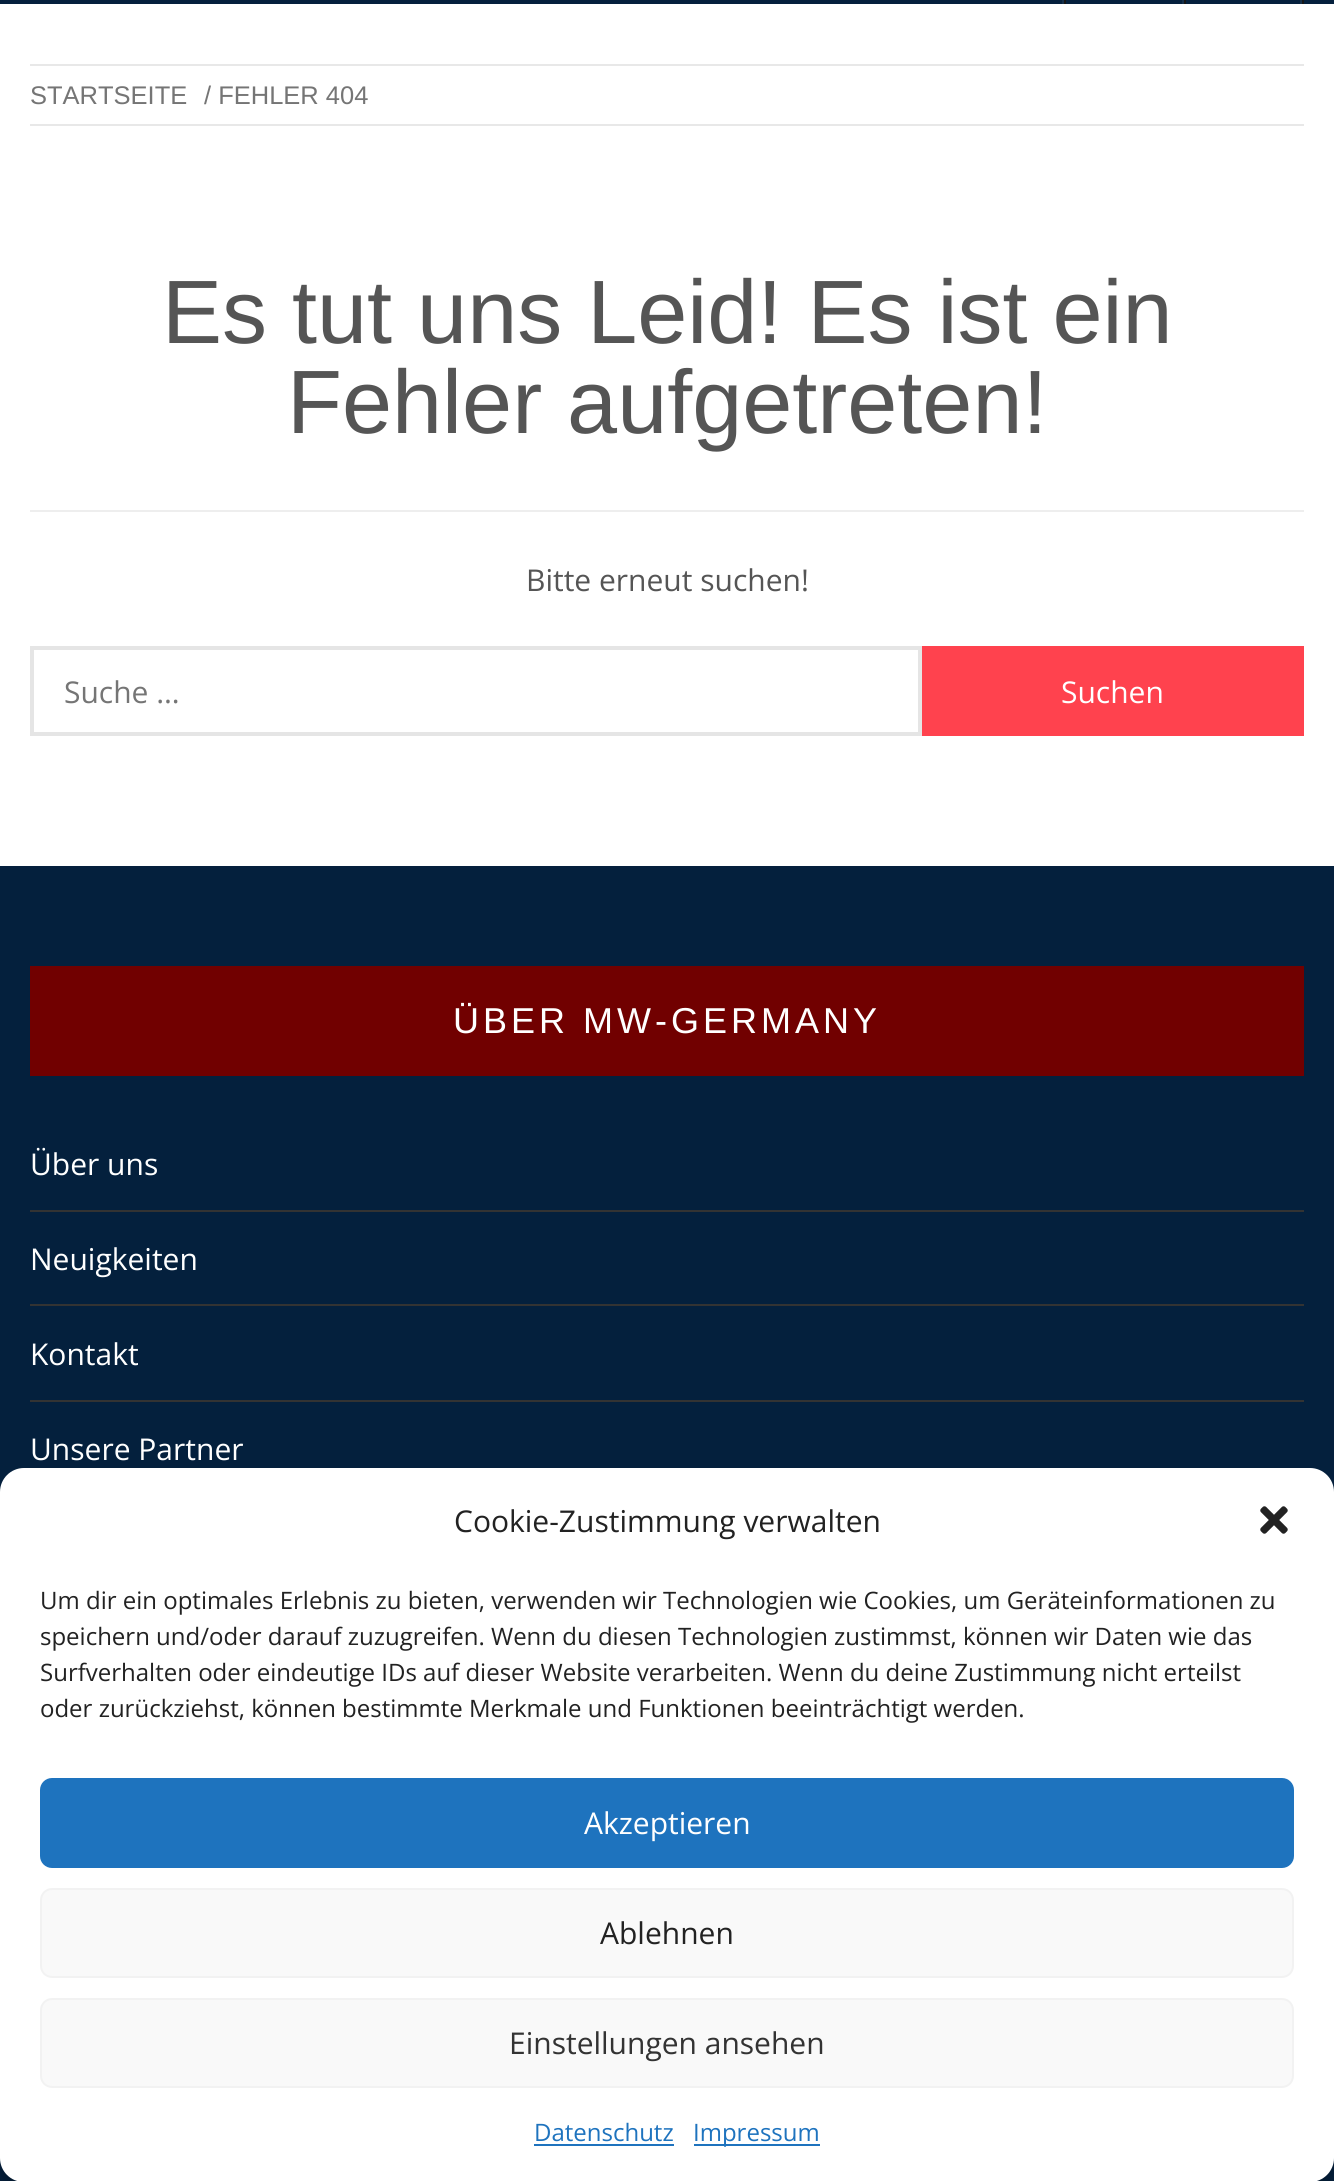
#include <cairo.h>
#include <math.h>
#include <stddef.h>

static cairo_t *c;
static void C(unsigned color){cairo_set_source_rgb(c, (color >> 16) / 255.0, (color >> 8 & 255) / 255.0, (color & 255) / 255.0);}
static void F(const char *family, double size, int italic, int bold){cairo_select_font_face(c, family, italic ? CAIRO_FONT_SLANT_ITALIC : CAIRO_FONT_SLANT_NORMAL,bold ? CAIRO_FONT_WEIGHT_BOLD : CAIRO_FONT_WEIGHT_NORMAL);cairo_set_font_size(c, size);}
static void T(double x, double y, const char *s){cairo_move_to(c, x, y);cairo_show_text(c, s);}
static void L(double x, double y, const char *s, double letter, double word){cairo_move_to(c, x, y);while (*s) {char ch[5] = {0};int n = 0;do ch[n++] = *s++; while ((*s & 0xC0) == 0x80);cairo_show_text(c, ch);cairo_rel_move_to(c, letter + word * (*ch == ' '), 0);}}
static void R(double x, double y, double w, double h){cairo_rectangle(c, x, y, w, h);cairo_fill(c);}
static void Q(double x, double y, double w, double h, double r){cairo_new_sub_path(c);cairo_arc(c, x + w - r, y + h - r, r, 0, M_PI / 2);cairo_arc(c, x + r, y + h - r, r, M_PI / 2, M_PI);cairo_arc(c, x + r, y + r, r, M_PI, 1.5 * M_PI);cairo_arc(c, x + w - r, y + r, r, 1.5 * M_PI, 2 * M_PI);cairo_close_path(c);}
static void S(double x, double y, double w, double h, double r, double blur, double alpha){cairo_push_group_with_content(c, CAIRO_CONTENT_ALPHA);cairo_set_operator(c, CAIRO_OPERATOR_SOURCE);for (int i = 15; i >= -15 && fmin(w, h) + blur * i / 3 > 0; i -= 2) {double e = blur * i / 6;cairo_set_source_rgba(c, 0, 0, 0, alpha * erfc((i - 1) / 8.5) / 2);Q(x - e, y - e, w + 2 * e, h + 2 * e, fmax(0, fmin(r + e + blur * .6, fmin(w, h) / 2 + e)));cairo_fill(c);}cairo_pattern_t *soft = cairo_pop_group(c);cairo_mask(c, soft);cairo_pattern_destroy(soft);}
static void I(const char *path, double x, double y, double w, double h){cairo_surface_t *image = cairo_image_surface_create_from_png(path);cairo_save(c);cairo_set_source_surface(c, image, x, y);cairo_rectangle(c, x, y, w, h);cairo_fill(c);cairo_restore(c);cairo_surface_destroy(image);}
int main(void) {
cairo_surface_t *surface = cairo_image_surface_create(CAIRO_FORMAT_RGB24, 1334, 2181);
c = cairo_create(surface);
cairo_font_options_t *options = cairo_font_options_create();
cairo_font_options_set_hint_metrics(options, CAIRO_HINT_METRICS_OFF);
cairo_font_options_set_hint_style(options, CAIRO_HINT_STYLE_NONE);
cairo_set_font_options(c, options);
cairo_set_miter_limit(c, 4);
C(0xffffff);
cairo_paint(c);
C(0x04203d);
R(0,0,1334,4);
C(0x152f4a);
R(1062,0,2,4);
R(1182,0,2,4);
C(0x171717);
R(1064,0,2,4);
C(0x152f4a);
R(1300,0,2,4);
C(0x171717);
R(1302,0,2,4);
R(1184,0,2,4);
C(0xe8e8e8);
R(30,64,1274,2);
R(30,124,1274,2);
F("Liberation Sans",25.5,0,0);
C(0x757575);
T(30,104,"STARTSEITE");
T(204,104,"/ FEHLER 404");
C(0xeeeeee);
R(30,510,1274,2);
F("Liberation Sans",90,0,0);
C(0x555555);
T(162,343,"Es tut uns Leid! Es ist ein");
T(287,433,"Fehler aufgetreten!");
F("Open Sans",30,0,0);
T(526,591,"Bitte erneut suchen!");
cairo_rectangle(c,32,648,888,86);
C(0xe5e5e5);
cairo_set_line_width(c,4);
cairo_stroke(c);
C(0x757575);
T(64,703,"Suche …");
C(0xff424e);
R(922,646,382,90);
C(0xffffff);
T(1061,703,"Suchen");
C(0x04203d);
R(0,866,1334,1315);
C(0x710000);
R(30,966,1274,110);
F("Liberation Sans",36,0,0);
C(0xffffff);
L(453,1033,"ÜBER MW-GERMANY",4,0);
C(0x333333);
R(30,1210,1274,2);
F("Open Sans",30,0,0);
C(0xffffff);
T(30,1175,"Über uns");
C(0x333333);
R(30,1304,1274,2);
C(0xffffff);
T(30,1270,"Neuigkeiten");
C(0x333333);
R(30,1400,1274,2);
C(0xffffff);
T(30,1365,"Kontakt");
T(30,1460,"Unsere Partner");
C(0x000000);
S(0,1480,1334,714,24,6,.23);
C(0xffffff);
Q(0,1468,1334,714,24);
cairo_fill(c);
C(0x222222);
T(454,1532,"Cookie-Zustimmung verwalten");
I("1.png",1260,1506,28,28);
F("Open Sans",24,0,0);
T(40,1609,"Um dir ein optimales Erlebnis zu bieten, verwenden wir Technologien wie Cookies, um Geräteinformationen zu");
T(40,1645,"speichern und/oder darauf zuzugreifen. Wenn du diesen Technologien zustimmst, können wir Daten wie das");
T(40,1681,"Surfverhalten oder eindeutige IDs auf dieser Website verarbeiten. Wenn du deine Zustimmung nicht erteilst");
T(40,1717,"oder zurückziehst, können bestimmte Merkmale und Funktionen beeinträchtigt werden.");
C(0x1e73be);
Q(41,1779,1252,88,11);
cairo_fill_preserve(c);
cairo_set_line_width(c,2);
cairo_stroke(c);
F("Open Sans",30,0,0);
C(0xffffff);
T(584,1834,"Akzeptieren");
C(0xf9f9f9);
Q(41,1889,1252,88,11);
cairo_fill_preserve(c);
C(0xf2f2f2);
cairo_stroke(c);
C(0x222222);
T(600,1944,"Ablehnen");
C(0xf9f9f9);
Q(41,1999,1252,88,11);
cairo_fill_preserve(c);
C(0xf2f2f2);
cairo_stroke(c);
C(0x333333);
T(509,2054,"Einstellungen ansehen");
F("Open Sans",24,0,0);
C(0x1e73be);
T(534,2141,"Datenschutz");
R(534,2144,140,2);
R(694,2144,126,2);
T(693,2141,"Impressum");
cairo_surface_write_to_png(surface, "o.png");
cairo_font_options_destroy(options);
cairo_destroy(c);
cairo_surface_destroy(surface);
return 0;
}
